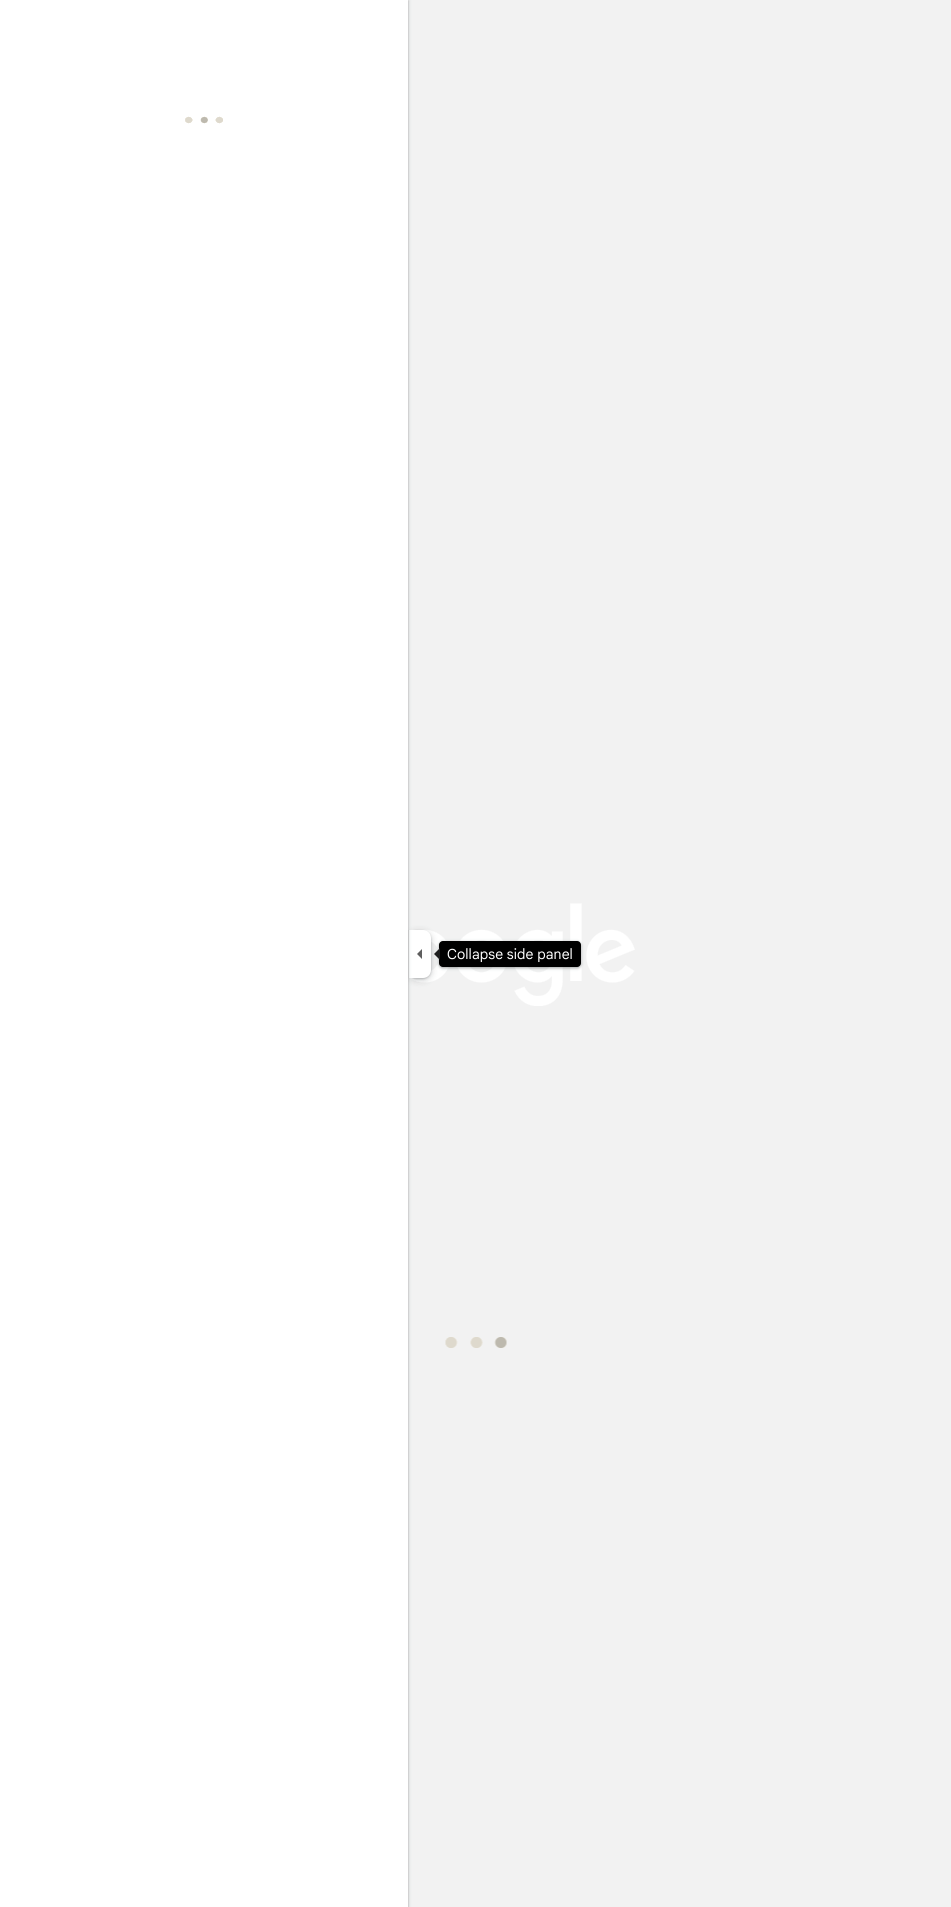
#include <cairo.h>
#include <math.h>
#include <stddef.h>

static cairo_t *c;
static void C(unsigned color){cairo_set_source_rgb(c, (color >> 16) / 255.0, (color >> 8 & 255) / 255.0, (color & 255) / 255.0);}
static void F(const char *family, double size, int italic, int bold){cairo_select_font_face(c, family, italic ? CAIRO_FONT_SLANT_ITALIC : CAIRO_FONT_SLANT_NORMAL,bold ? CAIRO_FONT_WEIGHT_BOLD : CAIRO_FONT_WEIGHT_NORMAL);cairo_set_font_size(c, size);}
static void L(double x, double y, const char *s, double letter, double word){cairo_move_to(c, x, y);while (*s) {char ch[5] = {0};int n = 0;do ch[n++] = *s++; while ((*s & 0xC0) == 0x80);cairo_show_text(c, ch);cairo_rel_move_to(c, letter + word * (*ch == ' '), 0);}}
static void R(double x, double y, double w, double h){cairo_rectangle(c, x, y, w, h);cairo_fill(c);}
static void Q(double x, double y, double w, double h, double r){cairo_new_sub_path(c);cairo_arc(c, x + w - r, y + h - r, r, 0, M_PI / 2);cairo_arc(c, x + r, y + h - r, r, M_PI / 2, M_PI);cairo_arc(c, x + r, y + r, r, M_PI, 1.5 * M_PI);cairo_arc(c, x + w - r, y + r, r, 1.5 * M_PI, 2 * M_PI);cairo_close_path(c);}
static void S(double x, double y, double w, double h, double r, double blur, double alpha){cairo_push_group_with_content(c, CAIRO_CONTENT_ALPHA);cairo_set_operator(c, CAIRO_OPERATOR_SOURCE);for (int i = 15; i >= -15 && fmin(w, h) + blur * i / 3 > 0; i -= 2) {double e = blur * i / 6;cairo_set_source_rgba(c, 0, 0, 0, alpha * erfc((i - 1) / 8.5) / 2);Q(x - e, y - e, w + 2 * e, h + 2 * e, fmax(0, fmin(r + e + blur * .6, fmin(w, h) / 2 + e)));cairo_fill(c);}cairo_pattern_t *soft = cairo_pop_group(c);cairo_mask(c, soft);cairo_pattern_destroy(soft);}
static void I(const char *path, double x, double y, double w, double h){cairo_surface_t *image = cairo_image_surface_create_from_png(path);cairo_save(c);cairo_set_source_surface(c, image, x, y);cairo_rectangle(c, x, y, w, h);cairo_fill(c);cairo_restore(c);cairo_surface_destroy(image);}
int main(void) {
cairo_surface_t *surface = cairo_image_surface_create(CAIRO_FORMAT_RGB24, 951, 1907);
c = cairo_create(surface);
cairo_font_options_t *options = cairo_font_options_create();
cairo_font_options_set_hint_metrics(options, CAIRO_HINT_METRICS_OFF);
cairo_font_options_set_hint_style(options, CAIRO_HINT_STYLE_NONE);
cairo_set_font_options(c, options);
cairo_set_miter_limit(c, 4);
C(0xf2f2f2);
cairo_paint(c);
I("1.png",409,903,226,103);
I("2.png",445,1337,62,11);
C(0x3c4043);
S(406,930,27,52,10,3,.15);
S(408,931,23,48,8,1,.3);
C(0xffffff);
cairo_new_path(c);
cairo_move_to(c,408,930);
cairo_line_to(c,423,930);
cairo_curve_to(c,427.5,930,431,933.5,431,938);
cairo_line_to(c,431,970);
cairo_curve_to(c,431,974.5,427.5,978,423,978);
cairo_line_to(c,408,978);
cairo_close_path(c);
cairo_fill(c);
C(0xe3e3e3);
R(408,930,1,48);
C(0x3c4043);
S(-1,0,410,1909,0,1.5,.15);
S(0,1,408,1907,0,1,.3);
C(0xffffff);
R(0,0,408,1907);
I("3.png",185,116,38,8);
C(0x5e5e5e);
cairo_new_path(c);
cairo_move_to(c,422,959);
cairo_line_to(c,417,954);
cairo_line_to(c,422,949);
cairo_close_path(c);
cairo_fill(c);
C(0x3c4043);
S(438,941,144,28,5,1.5,.15);
S(439,942,142,26,4,1,.3);
C(0x000000);
Q(439,941,142,26,4);
cairo_fill(c);
C(0x1f1f1f);
cairo_new_path(c);
cairo_move_to(c,440,948);
cairo_line_to(c,440,960);
cairo_line_to(c,434,954);
cairo_close_path(c);
cairo_fill(c);
F("Google Sans",14,0,0);
C(0xffffff);
L(447,959,"Collapse side panel",.1,0);
cairo_surface_write_to_png(surface, "o.png");
cairo_font_options_destroy(options);
cairo_destroy(c);
cairo_surface_destroy(surface);
return 0;
}
